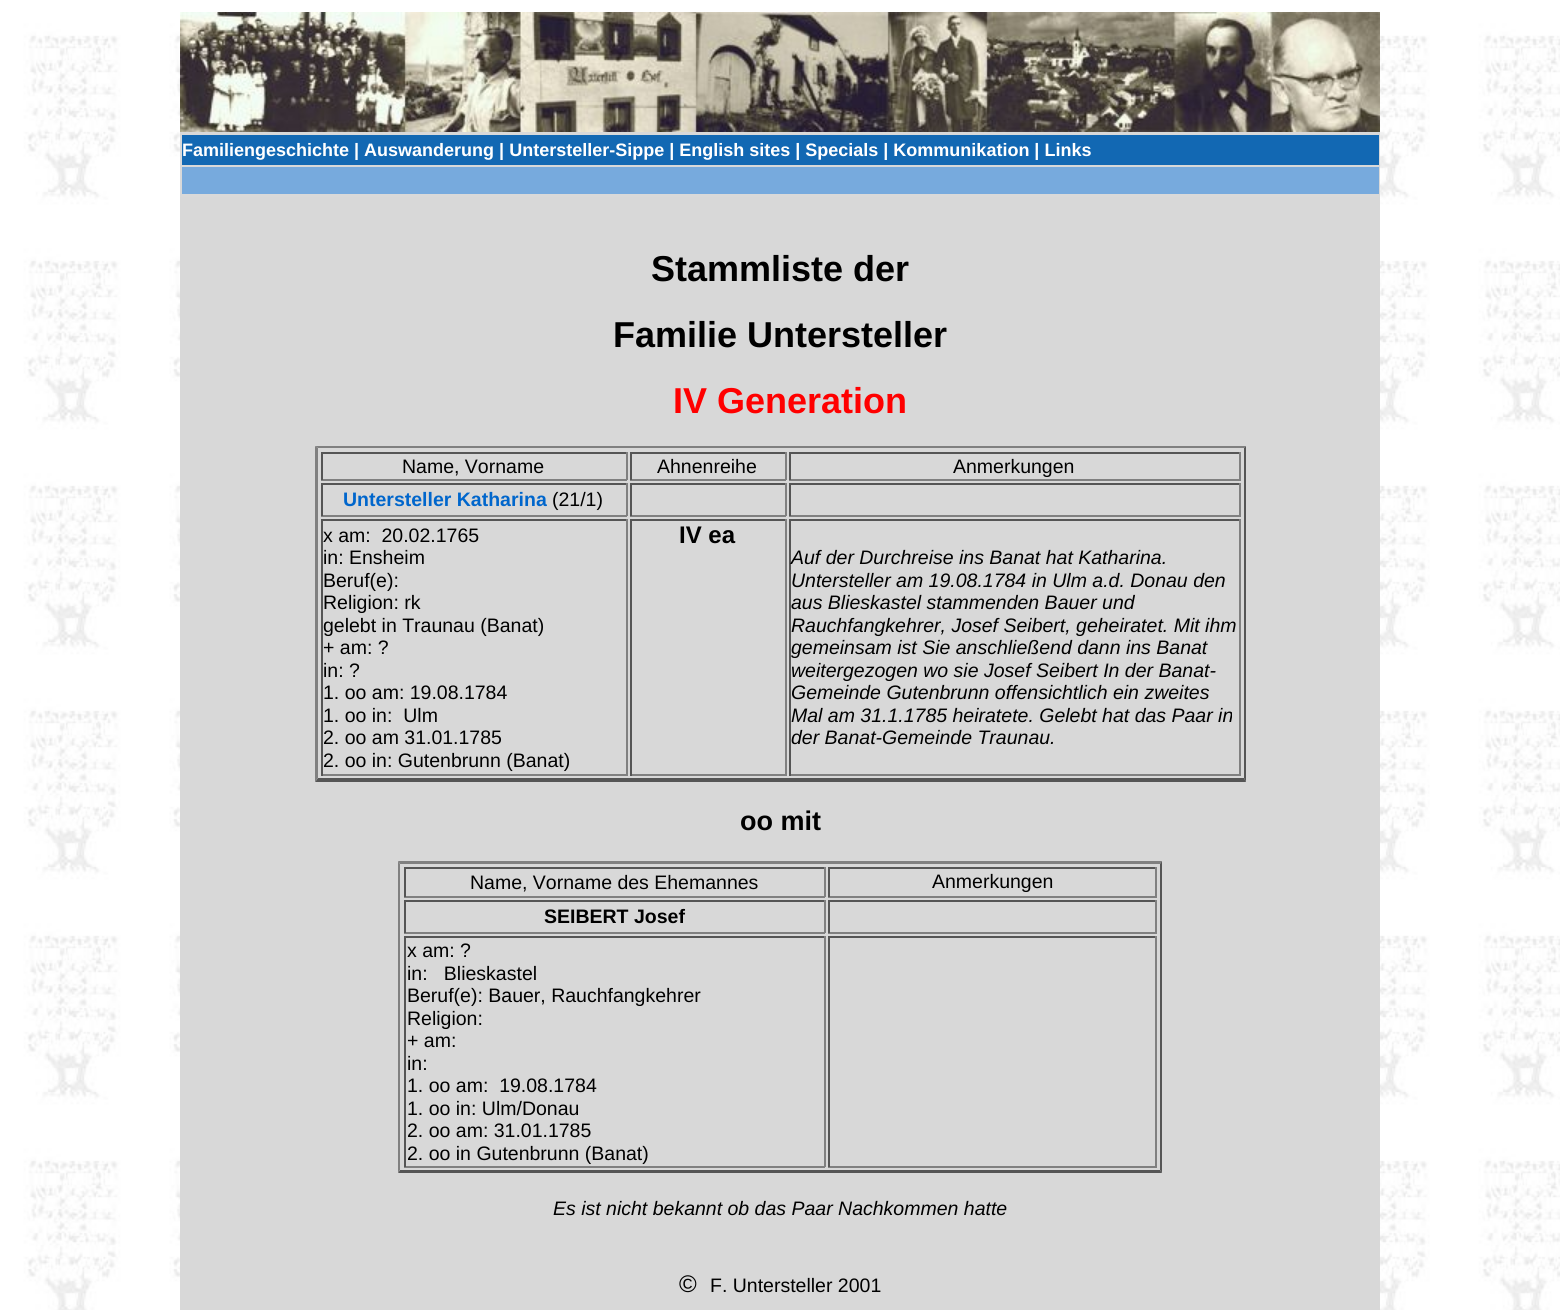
#include <cairo.h>
#include <math.h>
#include <stddef.h>

static cairo_t *c;
static void C(unsigned color){cairo_set_source_rgb(c, (color >> 16) / 255.0, (color >> 8 & 255) / 255.0, (color & 255) / 255.0);}
static void F(const char *family, double size, int italic, int bold){cairo_select_font_face(c, family, italic ? CAIRO_FONT_SLANT_ITALIC : CAIRO_FONT_SLANT_NORMAL,bold ? CAIRO_FONT_WEIGHT_BOLD : CAIRO_FONT_WEIGHT_NORMAL);cairo_set_font_size(c, size);}
static void T(double x, double y, const char *s){cairo_move_to(c, x, y);cairo_show_text(c, s);}
static void R(double x, double y, double w, double h){cairo_rectangle(c, x, y, w, h);cairo_fill(c);}
static void I(const char *path, double x, double y, double w, double h){cairo_surface_t *image = cairo_image_surface_create_from_png(path);cairo_save(c);cairo_set_source_surface(c, image, x, y);cairo_rectangle(c, x, y, w, h);cairo_fill(c);cairo_restore(c);cairo_surface_destroy(image);}
int main(void) {
cairo_surface_t *surface = cairo_image_surface_create(CAIRO_FORMAT_RGB24, 1560, 1310);
c = cairo_create(surface);
cairo_font_options_t *options = cairo_font_options_create();
cairo_font_options_set_hint_metrics(options, CAIRO_HINT_METRICS_OFF);
cairo_font_options_set_hint_style(options, CAIRO_HINT_STYLE_NONE);
cairo_set_font_options(c, options);
cairo_set_miter_limit(c, 4);
C(0xffffff);
cairo_paint(c);
I("1.png",0,0,1560,1310);
I("2.png",180,12,1200,120);
C(0xd9d9d9);
R(180,132,1200,65);
C(0x1268b3);
R(182,135,1197,30);
F("Liberation Sans",18,0,1);
C(0xffffff);
T(182,156,"Familiengeschichte | Auswanderung | Untersteller-Sippe | English sites | Specials | Kommunikation | Links");
C(0x77aadd);
R(182,167,1197,27);
C(0xd8d8d8);
R(180,197,1200,1113);
F("Liberation Sans",36,0,1);
C(0x000000);
T(651,281,"Stammliste der");
T(613,347,"Familie Untersteller");
C(0xff0000);
T(673,413,"IV Generation");
C(0x808080);
cairo_new_path(c);
cairo_move_to(c,315,446);
cairo_line_to(c,1246,446);
cairo_line_to(c,1244,448);
cairo_line_to(c,318,448);
cairo_close_path(c);
cairo_fill(c);
C(0x555555);
cairo_new_path(c);
cairo_move_to(c,1246,446);
cairo_line_to(c,1246,782);
cairo_line_to(c,1244,778);
cairo_line_to(c,1244,448);
cairo_close_path(c);
cairo_fill(c);
cairo_new_path(c);
cairo_move_to(c,1246,782);
cairo_line_to(c,315,782);
cairo_line_to(c,318,778);
cairo_line_to(c,1244,778);
cairo_close_path(c);
cairo_fill(c);
C(0x808080);
cairo_new_path(c);
cairo_move_to(c,315,782);
cairo_line_to(c,315,446);
cairo_line_to(c,318,448);
cairo_line_to(c,318,778);
cairo_close_path(c);
cairo_fill(c);
C(0x555555);
R(321,452,306,2);
C(0x808080);
R(626,452,2,28);
R(321,479,306,2);
C(0x555555);
R(321,452,2,28);
F("Liberation Sans",19.5,0,0);
C(0x000000);
T(402,473,"Name, Vorname");
C(0x555555);
R(630,452,156,2);
C(0x808080);
R(785,452,2,28);
R(630,479,156,2);
C(0x555555);
R(630,452,2,28);
C(0x000000);
T(657,473,"Ahnenreihe");
C(0x555555);
R(789,452,452,2);
C(0x808080);
R(1239,452,2,28);
R(789,479,452,2);
C(0x555555);
R(789,452,2,28);
C(0x000000);
T(953,473,"Anmerkungen");
C(0x555555);
R(321,483,306,2);
C(0x808080);
R(626,483,2,33);
R(321,515,306,2);
C(0x555555);
R(321,483,2,33);
F("Liberation Sans",19.5,0,1);
C(0x0066cc);
T(343,506,"Untersteller Katharina");
F("Liberation Sans",19.5,0,0);
C(0x000000);
T(552,506,"(21/1)");
C(0x555555);
R(630,483,156,2);
C(0x808080);
R(785,483,2,33);
R(630,515,156,2);
C(0x555555);
R(630,483,2,33);
R(789,483,452,2);
C(0x808080);
R(1239,483,2,33);
R(789,515,452,2);
C(0x555555);
R(789,483,2,33);
R(321,519,306,2);
C(0x808080);
R(626,519,2,257);
R(321,774,306,2);
C(0x555555);
R(321,519,2,257);
C(0x000000);
T(323,542,"x am:  20.02.1765");
T(323,564,"in: Ensheim");
T(323,587,"Beruf(e):");
T(323,609,"Religion: rk");
T(323,632,"gelebt in Traunau (Banat)");
T(323,654,"+ am: ?");
T(323,677,"in: ?");
T(323,699,"1. oo am: 19.08.1784");
T(323,722,"1. oo in:  Ulm");
T(323,744,"2. oo am 31.01.1785");
T(323,767,"2. oo in: Gutenbrunn (Banat)");
C(0x555555);
R(630,519,156,2);
C(0x808080);
R(785,519,2,257);
R(630,774,156,2);
C(0x555555);
R(630,519,2,257);
F("Liberation Sans",24,0,1);
C(0x000000);
T(679,543,"IV ea");
C(0x555555);
R(789,519,452,2);
C(0x808080);
R(1239,519,2,257);
R(789,774,452,2);
C(0x555555);
R(789,519,2,257);
F("Liberation Sans",19.5,1,0);
C(0x000000);
T(791,564,"Auf der Durchreise ins Banat hat Katharina.");
T(791,587,"Untersteller am 19.08.1784 in Ulm a.d. Donau den");
T(791,609,"aus Blieskastel stammenden Bauer und");
T(791,632,"Rauchfangkehrer, Josef Seibert, geheiratet. Mit ihm");
T(791,654,"gemeinsam ist Sie anschließend dann ins Banat");
T(791,677,"weitergezogen wo sie Josef Seibert In der Banat-");
T(791,699,"Gemeinde Gutenbrunn offensichtlich ein zweites");
T(791,722,"Mal am 31.1.1785 heiratete. Gelebt hat das Paar in");
T(791,744,"der Banat-Gemeinde Traunau.");
F("Liberation Sans",27,0,1);
T(740,830,"oo mit");
C(0x808080);
cairo_new_path(c);
cairo_move_to(c,398,861);
cairo_line_to(c,1162,861);
cairo_line_to(c,1160,864);
cairo_line_to(c,400,864);
cairo_close_path(c);
cairo_fill(c);
C(0x555555);
cairo_new_path(c);
cairo_move_to(c,1162,861);
cairo_line_to(c,1162,1173);
cairo_line_to(c,1160,1170);
cairo_line_to(c,1160,864);
cairo_close_path(c);
cairo_fill(c);
cairo_new_path(c);
cairo_move_to(c,1162,1173);
cairo_line_to(c,398,1173);
cairo_line_to(c,400,1170);
cairo_line_to(c,1160,1170);
cairo_close_path(c);
cairo_fill(c);
C(0x808080);
cairo_new_path(c);
cairo_move_to(c,398,1173);
cairo_line_to(c,398,861);
cairo_line_to(c,400,864);
cairo_line_to(c,400,1170);
cairo_close_path(c);
cairo_fill(c);
C(0x555555);
R(404,867,421,2);
C(0x808080);
R(824,867,2,30);
R(404,896,421,2);
C(0x555555);
R(404,867,2,30);
F("Liberation Sans",19.5,0,0);
C(0x000000);
T(470,889,"Name, Vorname des Ehemannes");
C(0x555555);
R(828,867,329,2);
C(0x808080);
R(1155,867,2,30);
R(828,896,329,2);
C(0x555555);
R(828,867,2,30);
C(0x000000);
T(932,888,"Anmerkungen");
C(0x555555);
R(404,900,421,2);
C(0x808080);
R(824,900,2,33);
R(404,932,421,2);
C(0x555555);
R(404,900,2,33);
F("Liberation Sans",19.5,0,1);
C(0x000000);
T(544,923,"SEIBERT Josef");
C(0x555555);
R(828,900,329,2);
C(0x808080);
R(1155,900,2,33);
R(828,932,329,2);
C(0x555555);
R(828,900,2,33);
R(404,936,421,2);
C(0x808080);
R(824,936,2,231);
R(404,1166,421,2);
C(0x555555);
R(404,936,2,231);
F("Liberation Sans",19.5,0,0);
C(0x000000);
T(407,957,"x am: ?");
T(407,980,"in:   Blieskastel");
T(407,1002,"Beruf(e): Bauer, Rauchfangkehrer");
T(407,1025,"Religion:");
T(407,1047,"+ am:");
T(407,1070,"in:");
T(407,1092,"1. oo am:  19.08.1784");
T(407,1115,"1. oo in: Ulm/Donau");
T(407,1137,"2. oo am: 31.01.1785");
T(407,1160,"2. oo in Gutenbrunn (Banat)");
C(0x555555);
R(828,936,329,2);
C(0x808080);
R(1155,936,2,231);
R(828,1166,329,2);
C(0x555555);
R(828,936,2,231);
F("Liberation Sans",19.5,1,0);
C(0x000000);
T(553,1215,"Es ist nicht bekannt ob das Paar Nachkommen hatte");
F("Liberation Sans",24,0,0);
T(679,1292,"©");
F("Liberation Sans",19.5,0,0);
T(710,1292,"F. Untersteller 2001");
cairo_surface_write_to_png(surface, "o.png");
cairo_font_options_destroy(options);
cairo_destroy(c);
cairo_surface_destroy(surface);
return 0;
}
